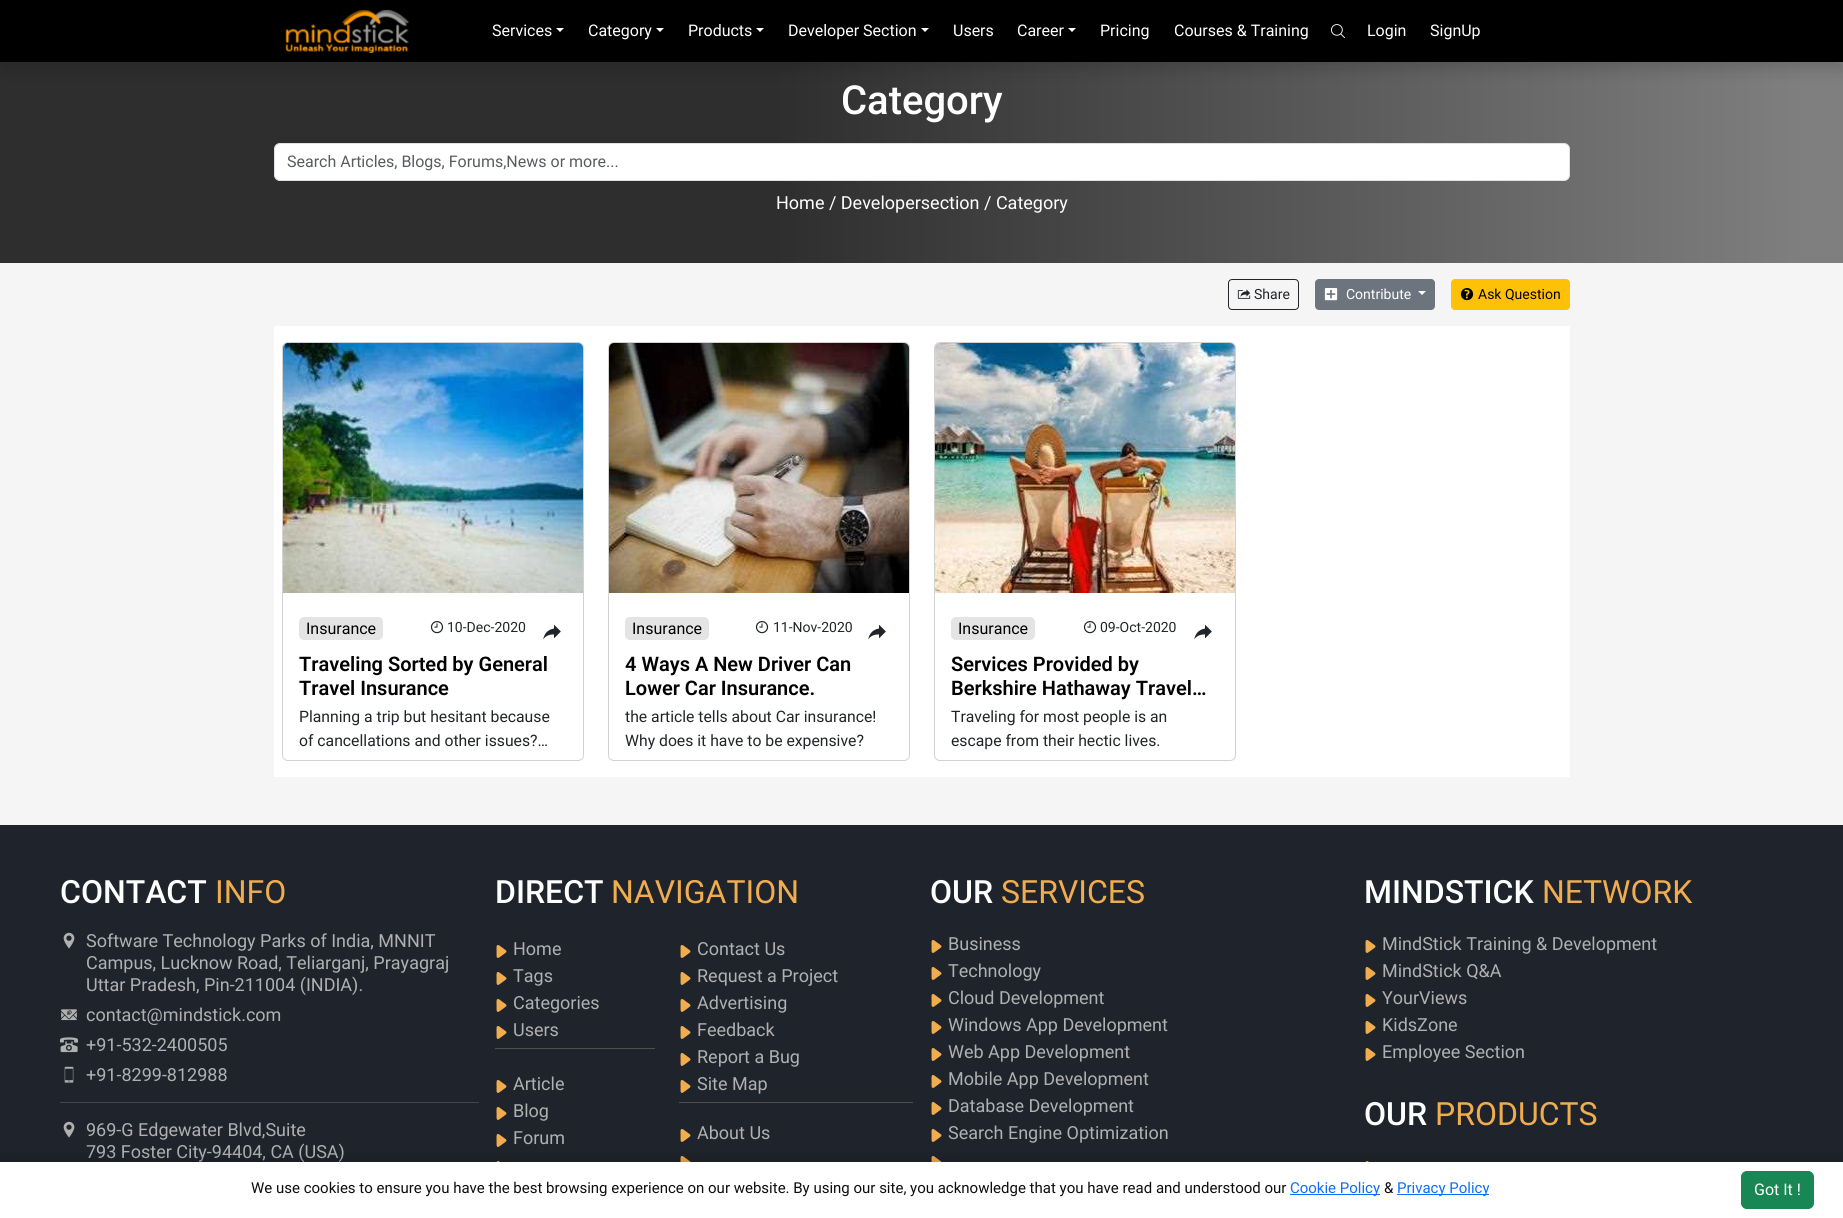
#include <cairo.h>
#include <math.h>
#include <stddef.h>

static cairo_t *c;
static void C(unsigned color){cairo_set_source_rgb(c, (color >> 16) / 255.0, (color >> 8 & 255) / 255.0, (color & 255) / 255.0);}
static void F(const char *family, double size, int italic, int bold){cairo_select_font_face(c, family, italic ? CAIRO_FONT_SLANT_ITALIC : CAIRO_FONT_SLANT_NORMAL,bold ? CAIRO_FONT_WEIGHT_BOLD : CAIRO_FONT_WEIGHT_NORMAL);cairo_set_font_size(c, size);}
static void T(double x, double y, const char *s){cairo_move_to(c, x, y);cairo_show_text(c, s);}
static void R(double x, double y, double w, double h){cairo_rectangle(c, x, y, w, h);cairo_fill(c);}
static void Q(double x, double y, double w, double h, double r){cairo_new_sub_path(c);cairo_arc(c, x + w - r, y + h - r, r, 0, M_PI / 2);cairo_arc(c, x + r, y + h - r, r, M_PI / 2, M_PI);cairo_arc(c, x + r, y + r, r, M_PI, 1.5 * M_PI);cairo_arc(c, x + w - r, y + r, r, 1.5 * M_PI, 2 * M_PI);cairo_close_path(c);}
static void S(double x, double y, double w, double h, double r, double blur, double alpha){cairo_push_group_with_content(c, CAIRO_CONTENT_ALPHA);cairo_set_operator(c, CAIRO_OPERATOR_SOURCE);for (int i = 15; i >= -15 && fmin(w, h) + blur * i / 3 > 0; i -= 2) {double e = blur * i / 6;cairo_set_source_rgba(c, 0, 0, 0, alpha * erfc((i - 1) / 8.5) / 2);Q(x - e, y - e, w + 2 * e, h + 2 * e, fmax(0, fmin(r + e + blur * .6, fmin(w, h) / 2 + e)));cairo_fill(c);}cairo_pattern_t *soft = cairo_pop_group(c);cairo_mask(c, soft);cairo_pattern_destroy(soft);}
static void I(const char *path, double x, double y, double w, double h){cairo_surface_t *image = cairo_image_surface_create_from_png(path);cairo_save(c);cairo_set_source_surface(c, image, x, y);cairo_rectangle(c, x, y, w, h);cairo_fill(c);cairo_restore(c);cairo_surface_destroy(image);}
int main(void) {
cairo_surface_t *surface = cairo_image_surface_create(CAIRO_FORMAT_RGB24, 1843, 1218);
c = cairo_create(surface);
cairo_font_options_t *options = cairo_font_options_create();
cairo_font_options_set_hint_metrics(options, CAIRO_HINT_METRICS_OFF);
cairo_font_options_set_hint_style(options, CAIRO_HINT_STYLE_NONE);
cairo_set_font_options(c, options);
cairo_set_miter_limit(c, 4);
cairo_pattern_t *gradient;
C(0xf5f5f5);
cairo_paint(c);
gradient = cairo_pattern_create_linear(0,156,1843,155);
cairo_pattern_add_color_stop_rgba(gradient,.42,0.18,0.18,0.18,1);
cairo_pattern_add_color_stop_rgba(gradient,.98,0.502,0.498,0.498,1);
cairo_set_source(c,gradient);
cairo_pattern_destroy(gradient);
R(0,62,1843,201);
C(0x000000);
S(0,8,1843,62,0,8,.15);
C(0x000000);
R(0,0,1843,62);
I("1.png",285,9,124,44);
F("Roboto",16,0,0);
C(0xffffff);
T(492,36,"Services");
cairo_new_path(c);
cairo_move_to(c,556,28);
cairo_line_to(c,564,28);
cairo_line_to(c,560,32);
cairo_close_path(c);
cairo_fill(c);
T(588,36,"Category");
cairo_new_path(c);
cairo_move_to(c,656,28);
cairo_line_to(c,664,28);
cairo_line_to(c,660,32);
cairo_close_path(c);
cairo_fill(c);
T(688,36,"Products");
cairo_new_path(c);
cairo_move_to(c,756,28);
cairo_line_to(c,764,28);
cairo_line_to(c,760,32);
cairo_close_path(c);
cairo_fill(c);
T(788,36,"Developer Section");
cairo_new_path(c);
cairo_move_to(c,921,28);
cairo_line_to(c,929,28);
cairo_line_to(c,925,32);
cairo_close_path(c);
cairo_fill(c);
T(953,36,"Users");
T(1017,36,"Career");
cairo_new_path(c);
cairo_move_to(c,1068,28);
cairo_line_to(c,1076,28);
cairo_line_to(c,1072,32);
cairo_close_path(c);
cairo_fill(c);
T(1100,36,"Pricing");
T(1174,36,"Courses & Training");
I("2.png",1331,24,14,15);
T(1367,36,"Login");
T(1430,36,"SignUp");
F("Roboto Medium",40,0,0);
T(841,114,"Category");
Q(274.5,143.5,1295,37,5.5);
cairo_fill_preserve(c);
C(0xdee2e6);
cairo_set_line_width(c,1);
cairo_stroke(c);
F("Roboto",16,0,0);
C(0x595c5f);
T(287,167,"Search Articles, Blogs, Forums,News or more...");
F("Roboto",18,0,0);
C(0xffffff);
T(776,209,"Home / Developersection / Category");
Q(1228.5,279.5,70,30,3.5);
C(0x212529);
cairo_stroke(c);
I("3.png",1237,289,14,10);
F("Roboto",14,0,0);
T(1254,299,"Share");
C(0x6c757d);
Q(1315.5,279.5,119,30,3.5);
cairo_fill_preserve(c);
cairo_stroke(c);
I("4.png",1324,288,14,13);
C(0xffffff);
T(1346,299,"Contribute");
cairo_new_path(c);
cairo_move_to(c,1418,291);
cairo_line_to(c,1426,291);
cairo_line_to(c,1422,295);
cairo_close_path(c);
cairo_fill(c);
C(0xffc107);
Q(1451.5,279.5,118,30,3.5);
cairo_fill_preserve(c);
cairo_stroke(c);
I("5.png",1460,288,14,13);
C(0x000000);
T(1478,299,"Ask Question");
C(0xffffff);
R(274,326,1296,451);
Q(282.5,342.5,301,418,5.5);
C(0xd2d2d2);
cairo_stroke(c);
I("6.png",283,343,300,250);
C(0xe4e4e4);
Q(299,617,84,23,5);
cairo_fill(c);
F("Roboto",16,0,0);
C(0x000000);
T(306,634,"Insurance");
I("7.png",430,621,14,13);
F("Roboto",14,0,0);
C(0x212529);
T(447,632,"10-Dec-2020");
I("8.png",543,624,18,16);
F("Roboto SemiBold",20,0,0);
C(0x000000);
T(299,671,"Traveling Sorted by General");
T(299,695,"Travel Insurance");
F("Roboto",15.75,0,0);
C(0x212529);
T(299,722,"Planning a trip but hesitant because");
T(299,746,"of cancellations and other issues?…");
Q(608.5,342.5,301,418,5.5);
C(0xd2d2d2);
cairo_stroke(c);
I("9.png",609,343,300,250);
C(0xe4e4e4);
Q(625,617,84,23,5);
cairo_fill(c);
F("Roboto",16,0,0);
C(0x000000);
T(632,634,"Insurance");
I("7.png",755,621,14,13);
F("Roboto",14,0,0);
C(0x212529);
T(773,632,"11-Nov-2020");
I("10.png",868,624,18,16);
F("Roboto SemiBold",20,0,0);
C(0x000000);
T(625,671,"4 Ways A New Driver Can");
T(625,695,"Lower Car Insurance.");
F("Roboto",15.75,0,0);
C(0x212529);
T(625,722,"the article tells about Car insurance!");
T(625,746,"Why does it have to be expensive?");
Q(934.5,342.5,301,418,5.5);
C(0xd2d2d2);
cairo_stroke(c);
I("11.png",935,343,300,250);
C(0xe4e4e4);
Q(951,617,84,23,5);
cairo_fill(c);
F("Roboto",16,0,0);
C(0x000000);
T(958,634,"Insurance");
I("7.png",1083,621,14,13);
F("Roboto",14,0,0);
C(0x212529);
T(1100,632,"09-Oct-2020");
I("10.png",1194,624,18,16);
F("Roboto SemiBold",20,0,0);
C(0x000000);
T(951,671,"Services Provided by");
T(951,695,"Berkshire Hathaway Travel…");
F("Roboto",15.75,0,0);
C(0x212529);
T(951,722,"Traveling for most people is an");
T(951,746,"escape from their hectic lives.");
C(0x1f232b);
R(0,825,1843,337);
F("Roboto Medium",32,0,0);
C(0xffffff);
T(60,903,"CONTACT");
F("Roboto",32,0,0);
C(0xf0ad4e);
T(215,903,"INFO");
I("12.png",63,932,12,17);
F("Roboto",18,0,0);
C(0xb0b0b0);
T(86,947,"Software Technology Parks of India, MNNIT");
T(86,969,"Campus, Lucknow Road, Teliarganj, Prayagraj");
T(86,991,"Uttar Pradesh, Pin-211004 (INDIA).");
I("13.png",61,1009,16,12);
T(86,1021,"contact@mindstick.com");
I("14.png",60,1037,18,16);
T(86,1051,"+91-532-2400505");
I("15.png",64,1066,10,17);
T(86,1081,"+91-8299-812988");
C(0x43464c);
R(60,1102,419,1);
I("12.png",63,1121,12,17);
C(0xb0b0b0);
T(86,1136,"969-G Edgewater Blvd,Suite");
T(86,1158,"793 Foster City-94404, CA (USA)");
F("Roboto Medium",32,0,0);
C(0xffffff);
T(495,903,"DIRECT");
F("Roboto",32,0,0);
C(0xf0ad4e);
T(611,903,"NAVIGATION");
C(0x4f4f4f);
R(495,1048,160,1);
I("16.png",496,945,11,13);
F("Roboto",18,0,0);
C(0xb0b0b0);
T(513,955,"Home");
I("16.png",496,972,11,13);
T(513,982,"Tags");
I("16.png",496,999,11,13);
T(513,1009,"Categories");
I("16.png",496,1026,11,13);
T(513,1036,"Users");
I("16.png",496,1080,11,13);
T(513,1090,"Article");
I("16.png",496,1107,11,13);
T(513,1117,"Blog");
I("16.png",496,1134,11,13);
T(513,1144,"Forum");
I("17.png",496,1161,4,1);
C(0x4f4f4f);
R(679,1102,234,1);
I("16.png",680,945,11,13);
C(0xb0b0b0);
T(697,955,"Contact Us");
I("16.png",680,972,11,13);
T(697,982,"Request a Project");
I("16.png",680,999,11,13);
T(697,1009,"Advertising");
I("16.png",680,1026,11,13);
T(697,1036,"Feedback");
I("16.png",680,1053,11,13);
T(697,1063,"Report a Bug");
I("16.png",680,1080,11,13);
T(697,1090,"Site Map");
I("16.png",680,1129,11,13);
T(697,1139,"About Us");
I("18.png",680,1156,11,6);
F("Roboto Medium",32,0,0);
C(0xffffff);
T(930,903,"OUR");
F("Roboto",32,0,0);
C(0xf0ad4e);
T(1001,903,"SERVICES");
I("16.png",931,940,11,13);
F("Roboto",18,0,0);
C(0xb0b0b0);
T(948,950,"Business");
I("16.png",931,967,11,13);
T(948,977,"Technology");
I("16.png",931,994,11,13);
T(948,1004,"Cloud Development");
I("16.png",931,1021,11,13);
T(948,1031,"Windows App Development");
I("16.png",931,1048,11,13);
T(948,1058,"Web App Development");
I("16.png",931,1075,11,13);
T(948,1085,"Mobile App Development");
I("16.png",931,1102,11,13);
T(948,1112,"Database Development");
I("16.png",931,1129,11,13);
T(948,1139,"Search Engine Optimization");
I("18.png",931,1156,11,6);
F("Roboto Medium",32,0,0);
C(0xffffff);
T(1364,903,"MINDSTICK");
F("Roboto",32,0,0);
C(0xf0ad4e);
T(1542,903,"NETWORK");
I("16.png",1365,940,11,13);
F("Roboto",18,0,0);
C(0xb0b0b0);
T(1382,950,"MindStick Training & Development");
I("16.png",1365,967,11,13);
T(1382,977,"MindStick Q&A");
I("16.png",1365,994,11,13);
T(1382,1004,"YourViews");
I("16.png",1365,1021,11,13);
T(1382,1031,"KidsZone");
I("16.png",1365,1048,11,13);
T(1382,1058,"Employee Section");
F("Roboto Medium",32,0,0);
C(0xffffff);
T(1364,1125,"OUR");
F("Roboto",32,0,0);
C(0xf0ad4e);
T(1435,1125,"PRODUCTS");
I("17.png",1365,1161,4,1);
C(0x000000);
S(0,1157,1843,56,0,4,.14);
C(0xffffff);
R(0,1162,1843,56);
F("Roboto",15,0,0);
C(0x0e0e12);
T(251,1193,"We use cookies to ensure you have the best browsing experience on our website. By using our site, you acknowledge that you have read and understood our");
C(0x0d6efd);
R(1290,1194,90,1);
T(1290,1193,"Cookie Policy");
C(0x0e0e12);
T(1384,1193,"&");
C(0x0d6efd);
R(1397,1194,92,1);
T(1397,1193,"Privacy Policy");
C(0x198754);
Q(1741.5,1171.5,72,37,5.5);
cairo_fill_preserve(c);
cairo_stroke(c);
F("Roboto",16,0,0);
C(0xffffff);
T(1754,1195,"Got It !");
cairo_surface_write_to_png(surface, "o.png");
cairo_font_options_destroy(options);
cairo_destroy(c);
cairo_surface_destroy(surface);
return 0;
}
